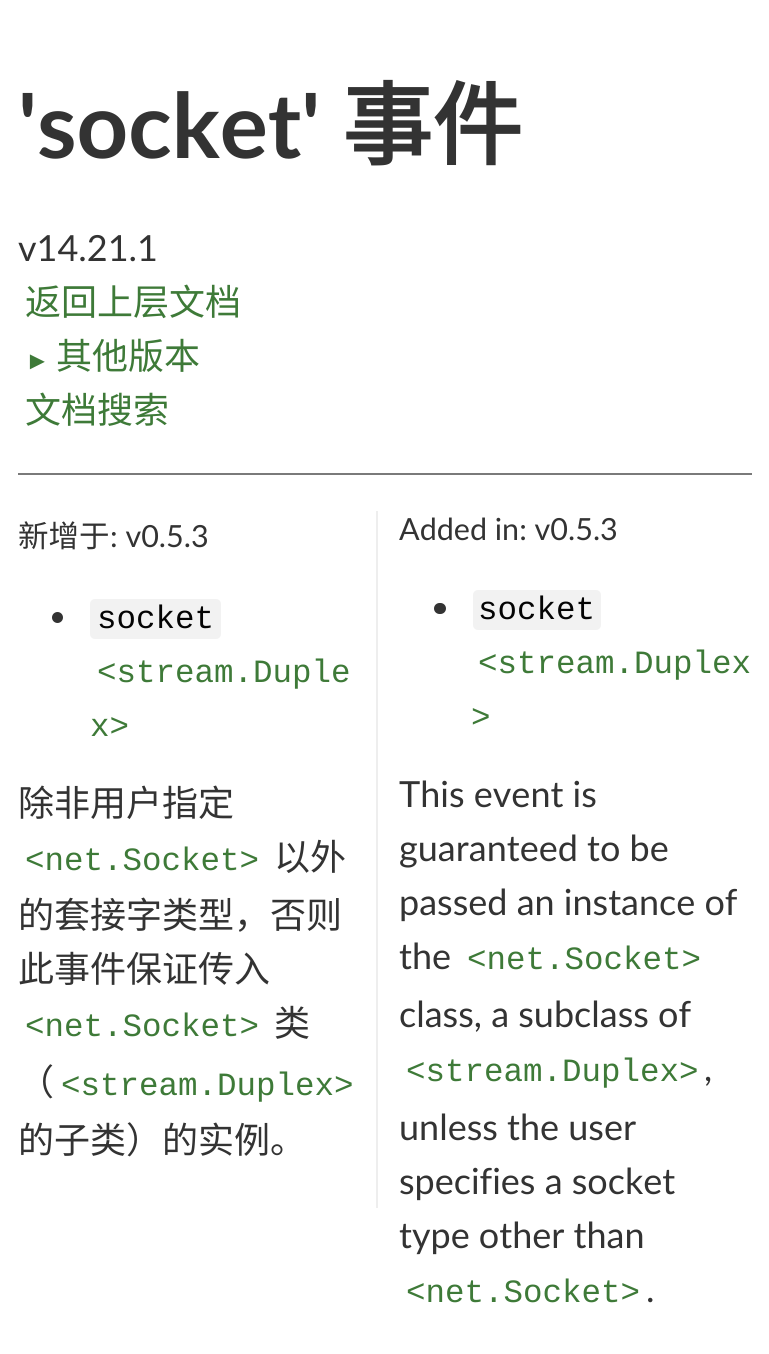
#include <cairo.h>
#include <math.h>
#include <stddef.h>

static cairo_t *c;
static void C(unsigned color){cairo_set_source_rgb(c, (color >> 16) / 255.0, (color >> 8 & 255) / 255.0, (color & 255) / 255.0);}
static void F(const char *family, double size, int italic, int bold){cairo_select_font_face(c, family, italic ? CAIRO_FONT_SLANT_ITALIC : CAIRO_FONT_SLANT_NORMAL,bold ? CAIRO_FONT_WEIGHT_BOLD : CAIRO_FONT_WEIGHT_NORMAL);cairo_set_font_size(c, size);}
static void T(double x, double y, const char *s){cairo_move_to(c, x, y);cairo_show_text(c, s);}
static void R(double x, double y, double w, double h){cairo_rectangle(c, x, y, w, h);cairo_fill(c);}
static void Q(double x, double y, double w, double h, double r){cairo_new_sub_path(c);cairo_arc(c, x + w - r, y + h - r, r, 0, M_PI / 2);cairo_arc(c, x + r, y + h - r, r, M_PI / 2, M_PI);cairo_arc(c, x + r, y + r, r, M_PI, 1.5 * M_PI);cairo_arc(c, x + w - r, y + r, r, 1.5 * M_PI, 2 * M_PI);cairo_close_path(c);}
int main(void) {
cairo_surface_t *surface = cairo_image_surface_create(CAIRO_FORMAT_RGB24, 769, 1354);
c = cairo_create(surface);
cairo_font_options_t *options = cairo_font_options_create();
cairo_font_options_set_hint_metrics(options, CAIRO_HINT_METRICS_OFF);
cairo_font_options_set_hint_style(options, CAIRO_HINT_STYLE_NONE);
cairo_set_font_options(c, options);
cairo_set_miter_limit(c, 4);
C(0xffffff);
cairo_paint(c);
F("Lato",90,0,1);
C(0x333333);
T(18,158,"'socket'");
F("Noto Sans CJK SC",90,0,1);
T(342,158,"事件");
F("Lato",36,0,0);
T(18,261,"v14.21.1");
F("Noto Sans CJK SC",36,0,0);
C(0x3e7a38);
T(25,315,"返回上层文档");
F("Liberation Sans",25,0,0);
T(25,369,"►");
F("Noto Sans CJK SC",36,0,0);
T(56,369,"其他版本");
T(25,423,"文档搜索");
C(0x7a7a7a);
R(18,473,734,2);
C(0xeeeeee);
R(376,511,2,697);
F("Noto Sans CJK SC",30.5,0,0);
C(0x333333);
T(18,547,"新增于");
F("Lato",30.5,0,0);
T(110,547,": v0.5.3");
cairo_new_path(c);
cairo_arc(c,57.5,617.5,5.5,0,2 * M_PI);
cairo_fill(c);
C(0xf2f2f2);
Q(90,599,131,40,5);
cairo_fill(c);
F("Liberation Mono",32.5,0,0);
C(0x040404);
T(97,628,"socket");
C(0x3e7a38);
T(97,682,"<stream.Duple");
T(90,736,"x>");
F("Noto Sans CJK SC",36,0,0);
C(0x333333);
T(18,816,"除非用户指定");
F("Liberation Mono",32.5,0,0);
C(0x3e7a38);
T(25,870,"<net.Socket>");
F("Noto Sans CJK SC",36,0,0);
C(0x333333);
T(274,870,"以外");
T(18,928,"的套接字类型，否则");
T(18,982,"此事件保证传入");
F("Liberation Mono",32.5,0,0);
C(0x3e7a38);
T(25,1036,"<net.Socket>");
F("Noto Sans CJK SC",36,0,0);
C(0x333333);
T(274,1036,"类");
T(18,1095,"（");
F("Liberation Mono",32.5,0,0);
C(0x3e7a38);
T(61,1095,"<stream.Duplex>");
F("Noto Sans CJK SC",36,0,0);
C(0x333333);
T(18,1153,"的子类）的实例。");
F("Lato",30.5,0,0);
T(399,540,"Added in: v0.5.3");
Q(434,603,12,11,5.5);
cairo_fill(c);
C(0xf2f2f2);
Q(473,590,128,40,5);
cairo_fill(c);
F("Liberation Mono",32.5,0,0);
C(0x040404);
T(478,619,"socket");
C(0x3e7a38);
T(478,673,"<stream.Duplex");
T(471,727,">");
F("Lato",36,0,0);
C(0x333333);
T(399,807,"This event is");
T(399,861,"guaranteed to be");
T(399,915,"passed an instance of");
T(399,969,"the");
F("Liberation Mono",32.5,0,0);
C(0x3e7a38);
T(467,969,"<net.Socket>");
F("Lato",36,0,0);
C(0x333333);
T(399,1027,"class, a subclass of");
F("Liberation Mono",32.5,0,0);
C(0x3e7a38);
T(406,1081,"<stream.Duplex>");
F("Lato",36,0,0);
C(0x333333);
T(704,1081,",");
T(399,1140,"unless the user");
T(399,1194,"specifies a socket");
T(399,1248,"type other than");
F("Liberation Mono",32.5,0,0);
C(0x3e7a38);
T(406,1302,"<net.Socket>");
F("Lato",36,0,0);
C(0x333333);
T(646,1302,".");
cairo_surface_write_to_png(surface, "o.png");
cairo_font_options_destroy(options);
cairo_destroy(c);
cairo_surface_destroy(surface);
return 0;
}
